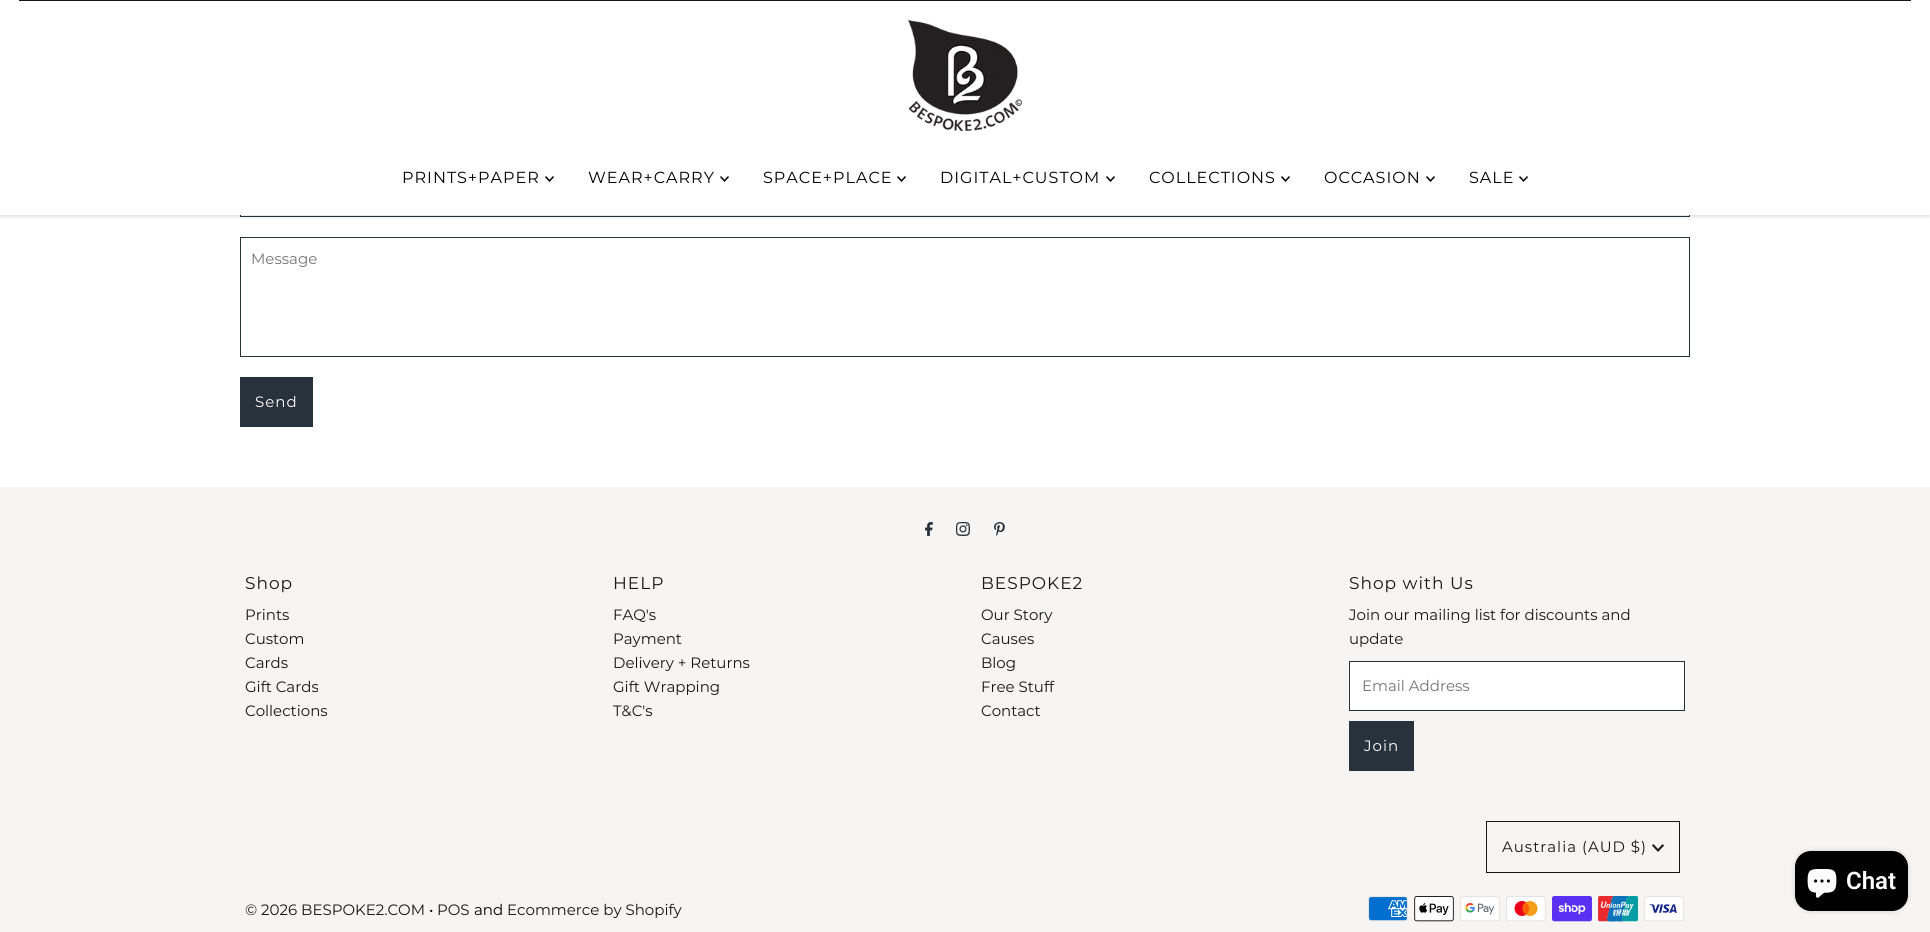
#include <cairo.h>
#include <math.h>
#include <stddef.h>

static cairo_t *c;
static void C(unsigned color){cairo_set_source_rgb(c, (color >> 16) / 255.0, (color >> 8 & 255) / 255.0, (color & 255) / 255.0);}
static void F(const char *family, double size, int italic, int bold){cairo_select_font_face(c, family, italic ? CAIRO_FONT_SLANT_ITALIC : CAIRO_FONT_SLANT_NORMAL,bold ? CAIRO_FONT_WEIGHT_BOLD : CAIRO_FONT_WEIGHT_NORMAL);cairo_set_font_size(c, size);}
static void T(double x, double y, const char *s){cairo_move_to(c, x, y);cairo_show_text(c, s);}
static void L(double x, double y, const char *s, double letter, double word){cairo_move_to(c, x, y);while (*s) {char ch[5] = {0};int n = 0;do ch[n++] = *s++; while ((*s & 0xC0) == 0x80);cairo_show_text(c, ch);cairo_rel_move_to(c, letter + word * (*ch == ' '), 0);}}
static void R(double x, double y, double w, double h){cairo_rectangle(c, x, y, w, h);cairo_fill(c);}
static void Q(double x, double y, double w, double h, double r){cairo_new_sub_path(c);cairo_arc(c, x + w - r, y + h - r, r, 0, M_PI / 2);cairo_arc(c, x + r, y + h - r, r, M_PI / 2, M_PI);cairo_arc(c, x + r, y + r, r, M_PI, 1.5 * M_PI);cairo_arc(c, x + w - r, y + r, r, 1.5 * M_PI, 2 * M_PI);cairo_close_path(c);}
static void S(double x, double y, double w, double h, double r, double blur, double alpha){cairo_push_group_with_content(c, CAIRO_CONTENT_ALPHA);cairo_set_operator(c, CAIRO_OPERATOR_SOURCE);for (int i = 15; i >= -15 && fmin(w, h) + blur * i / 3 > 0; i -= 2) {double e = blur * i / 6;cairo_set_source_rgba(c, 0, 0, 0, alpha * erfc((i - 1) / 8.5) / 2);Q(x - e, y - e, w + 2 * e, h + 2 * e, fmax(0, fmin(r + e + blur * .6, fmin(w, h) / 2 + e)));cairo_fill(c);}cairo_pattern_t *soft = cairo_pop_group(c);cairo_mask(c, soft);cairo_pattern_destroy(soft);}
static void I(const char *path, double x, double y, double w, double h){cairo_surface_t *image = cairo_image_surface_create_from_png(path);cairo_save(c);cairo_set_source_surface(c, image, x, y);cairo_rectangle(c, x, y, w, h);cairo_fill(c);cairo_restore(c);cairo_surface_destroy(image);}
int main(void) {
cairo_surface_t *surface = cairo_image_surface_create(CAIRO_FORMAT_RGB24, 1930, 932);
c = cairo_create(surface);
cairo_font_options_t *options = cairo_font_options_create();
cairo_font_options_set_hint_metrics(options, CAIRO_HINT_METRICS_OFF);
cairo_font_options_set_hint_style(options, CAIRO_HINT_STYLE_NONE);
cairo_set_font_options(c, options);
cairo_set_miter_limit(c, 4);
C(0xffffff);
cairo_paint(c);
cairo_rectangle(c,240.5,167.5,1449,49);
C(0x28323c);
cairo_set_line_width(c,1);
cairo_stroke(c);
C(0x000000);
S(0,2,1930,215,0,2,.12);
C(0xffffff);
R(0,0,1930,215);
C(0x161616);
R(19,0,1892,1);
I("1.png",908,20,114,111);
F("Montserrat",16,0,0);
C(0x000000);
L(402,183,"PRINTS+PAPER",1,0);
I("2.png",545,176,9,6);
L(588,183,"WEAR+CARRY",1,0);
I("2.png",720,176,9,6);
L(763,183,"SPACE+PLACE",1,0);
I("2.png",897,176,9,6);
L(940,183,"DIGITAL+CUSTOM",1,0);
I("2.png",1106,176,9,6);
L(1149,183,"COLLECTIONS",1,0);
I("2.png",1281,176,9,6);
L(1324,183,"OCCASION",1,0);
I("2.png",1426,176,9,6);
L(1469,183,"SALE",1,0);
I("2.png",1519,176,9,6);
cairo_rectangle(c,240.5,237.5,1449,119);
C(0x28323c);
cairo_stroke(c);
F("Montserrat",15,0,0);
C(0x757575);
T(251,264,"Message");
C(0x28323c);
R(240,377,73,50);
C(0xffffff);
L(255,407,"Send",1,0);
C(0xf6f5f3);
R(0,487,1930,445);
I("3.png",925,522,8,14);
I("4.png",956,522,14,14);
I("5.png",994,522,11,14);
F("Montserrat",17,0,0);
C(0x161616);
L(245,589,"Shop",1,0);
F("Montserrat",15,0,0);
T(245,620,"Prints");
T(245,644,"Custom");
T(245,668,"Cards");
T(245,692,"Gift Cards");
T(245,716,"Collections");
F("Montserrat",17,0,0);
L(613,589,"HELP",1,0);
F("Montserrat",15,0,0);
T(613,620,"FAQ's");
T(613,644,"Payment");
T(613,668,"Delivery + Returns");
T(613,692,"Gift Wrapping");
T(613,716,"T&C's");
F("Montserrat",17,0,0);
L(981,589,"BESPOKE2",1,0);
F("Montserrat",15,0,0);
T(981,620,"Our Story");
T(981,644,"Causes");
T(981,668,"Blog");
T(981,692,"Free Stuff");
T(981,716,"Contact");
F("Montserrat",17,0,0);
L(1349,589,"Shop with Us",1,0);
F("Montserrat",15,0,0);
T(1349,620,"Join our mailing list for discounts and");
T(1349,644,"update");
C(0xffffff);
cairo_rectangle(c,1349.5,661.5,335,49);
cairo_fill_preserve(c);
C(0x28323c);
cairo_stroke(c);
C(0x757575);
T(1362,691,"Email Address");
C(0x28323c);
R(1349,721,65,50);
C(0xffffff);
L(1364,751,"Join",1,0);
cairo_rectangle(c,1486.5,821.5,193,51);
C(0x161616);
cairo_stroke(c);
L(1502,852,"Australia (AUD $)",1,0);
I("6.png",1652,844,12,8);
I("7.png",1368,896,40,25);
I("8.png",1414,896,40,26);
I("9.png",1460,896,40,25);
I("10.png",1506,896,40,25);
I("11.png",1552,896,40,26);
I("12.png",1598,896,40,26);
I("13.png",1644,896,40,25);
T(245,915,"© 2026 BESPOKE2.COM");
C(0x000000);
T(429,915,"•");
C(0x161616);
T(437,915,"POS");
C(0x000000);
T(474,915,"and");
C(0x161616);
T(507,915,"Ecommerce by Shopify");
C(0x000000);
S(1795,851,113,60,16,2.5,.15);
C(0x000000);
Q(1795,851,113,60,16);
cairo_fill(c);
I("14.png",1807,869,30,29);
F("Roboto SemiBold",24,0,0);
C(0xffffff);
T(1846,889,"Chat");
cairo_surface_write_to_png(surface, "o.png");
cairo_font_options_destroy(options);
cairo_destroy(c);
cairo_surface_destroy(surface);
return 0;
}
